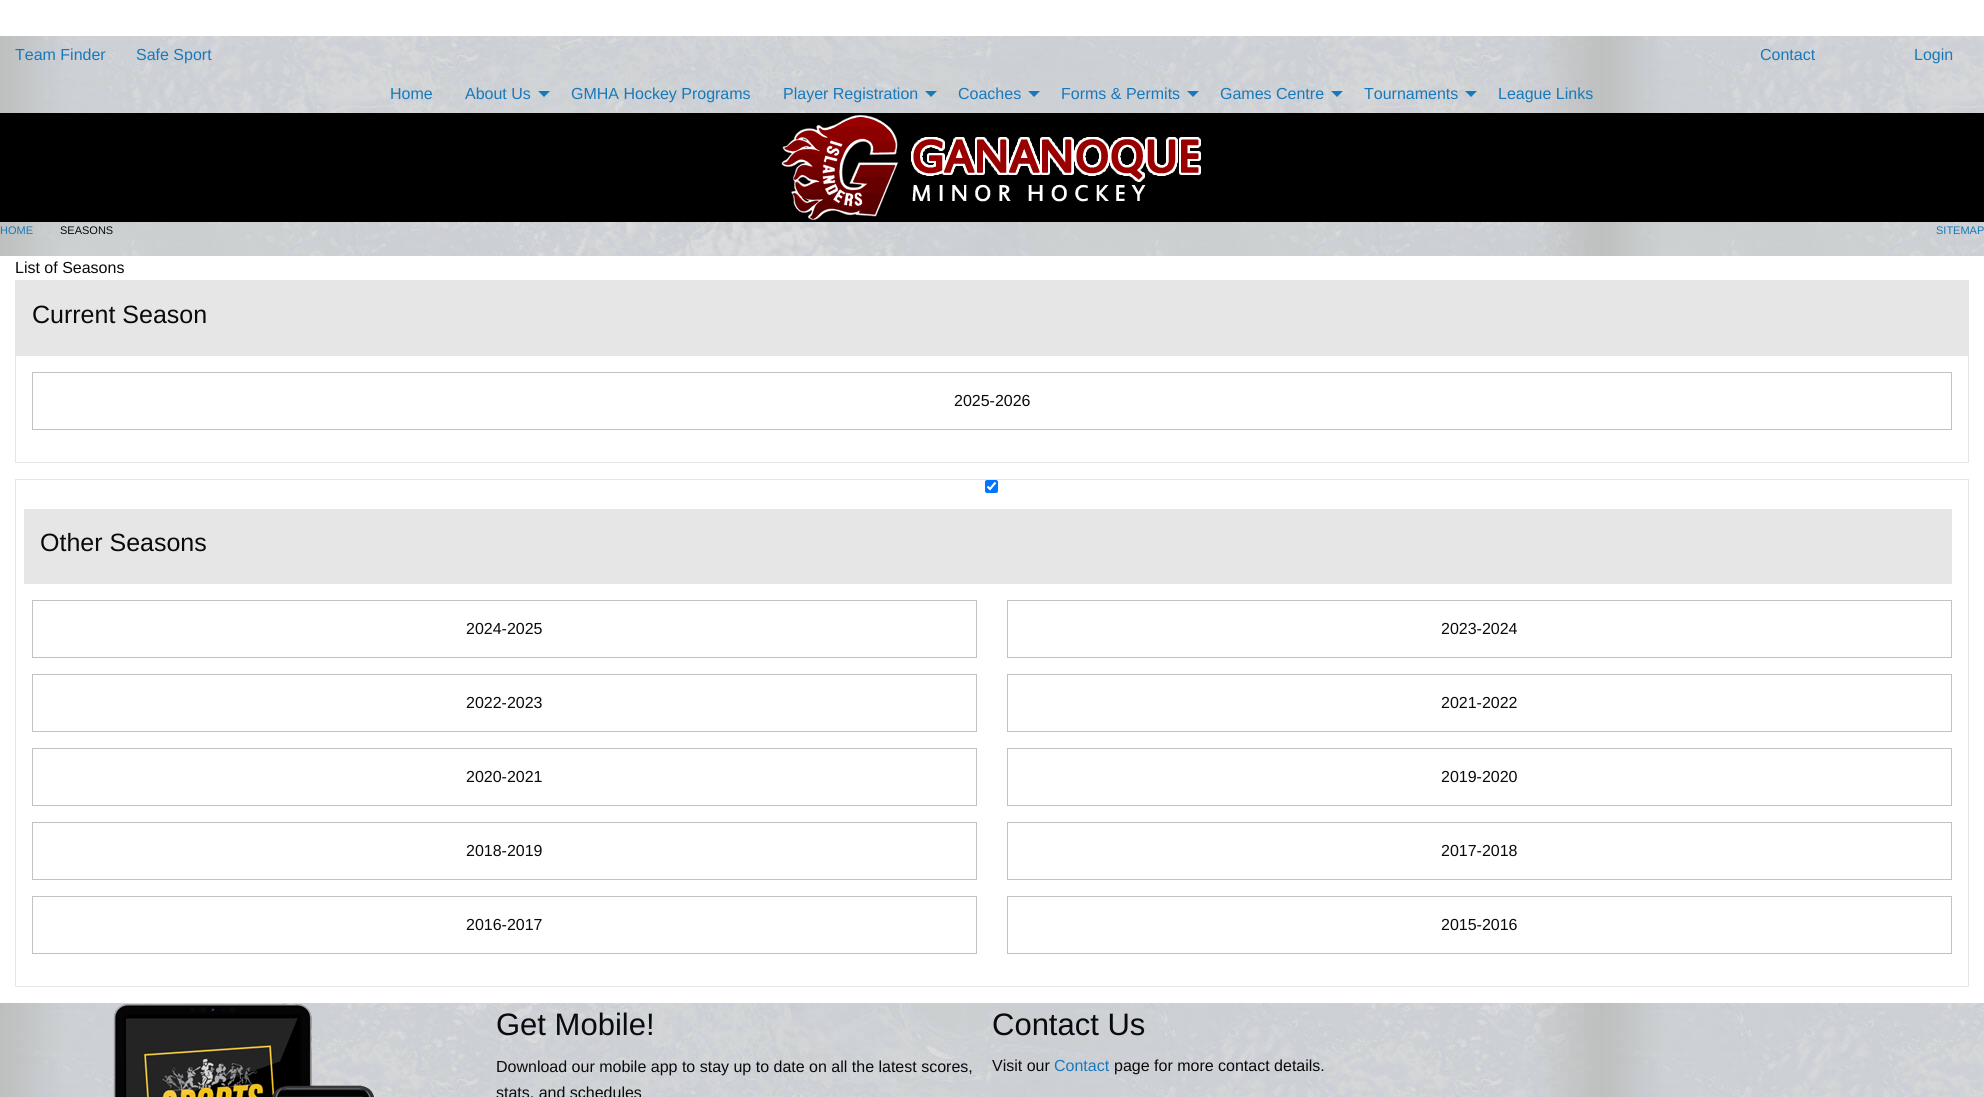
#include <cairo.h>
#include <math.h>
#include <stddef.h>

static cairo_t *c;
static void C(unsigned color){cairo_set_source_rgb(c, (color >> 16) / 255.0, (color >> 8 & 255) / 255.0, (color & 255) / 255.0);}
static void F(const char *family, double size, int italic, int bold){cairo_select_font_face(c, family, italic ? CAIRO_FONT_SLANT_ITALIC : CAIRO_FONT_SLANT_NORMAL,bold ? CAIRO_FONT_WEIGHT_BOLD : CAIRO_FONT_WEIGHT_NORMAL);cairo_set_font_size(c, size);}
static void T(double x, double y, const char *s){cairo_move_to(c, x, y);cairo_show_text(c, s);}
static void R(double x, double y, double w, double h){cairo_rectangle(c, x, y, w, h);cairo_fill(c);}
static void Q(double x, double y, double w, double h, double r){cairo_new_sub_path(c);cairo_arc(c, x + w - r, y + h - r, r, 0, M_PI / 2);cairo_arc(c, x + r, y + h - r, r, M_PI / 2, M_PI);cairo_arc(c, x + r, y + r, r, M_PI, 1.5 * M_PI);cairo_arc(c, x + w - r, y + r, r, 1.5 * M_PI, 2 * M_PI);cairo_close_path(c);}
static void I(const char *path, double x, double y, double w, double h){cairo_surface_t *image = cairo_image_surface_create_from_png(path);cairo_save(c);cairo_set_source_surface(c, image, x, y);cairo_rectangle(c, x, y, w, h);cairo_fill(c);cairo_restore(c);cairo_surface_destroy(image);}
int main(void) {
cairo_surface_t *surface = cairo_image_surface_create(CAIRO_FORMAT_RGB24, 1984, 1097);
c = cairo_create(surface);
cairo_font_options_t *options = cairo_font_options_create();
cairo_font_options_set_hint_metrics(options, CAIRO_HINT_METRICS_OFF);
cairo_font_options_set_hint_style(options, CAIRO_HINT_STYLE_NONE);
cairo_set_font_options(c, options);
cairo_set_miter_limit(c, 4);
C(0xffffff);
cairo_paint(c);
I("1.png",0,36,1984,1061);
F("Liberation Sans",16,0,0);
C(0x1779ba);
T(15,60,"Team Finder");
T(136,60,"Safe Sport");
T(1760,60,"Contact");
T(1914,60,"Login");
T(390,99,"Home");
T(465,99,"About Us");
cairo_new_path(c);
cairo_move_to(c,538,91);
cairo_line_to(c,550,91);
cairo_line_to(c,544,97);
cairo_close_path(c);
cairo_fill(c);
T(571,99,"GMHA Hockey Programs");
T(783,99,"Player Registration");
cairo_new_path(c);
cairo_move_to(c,925,91);
cairo_line_to(c,937,91);
cairo_line_to(c,931,97);
cairo_close_path(c);
cairo_fill(c);
T(958,99,"Coaches");
cairo_new_path(c);
cairo_move_to(c,1028,91);
cairo_line_to(c,1040,91);
cairo_line_to(c,1034,97);
cairo_close_path(c);
cairo_fill(c);
T(1061,99,"Forms & Permits");
cairo_new_path(c);
cairo_move_to(c,1187,91);
cairo_line_to(c,1199,91);
cairo_line_to(c,1193,97);
cairo_close_path(c);
cairo_fill(c);
T(1220,99,"Games Centre");
cairo_new_path(c);
cairo_move_to(c,1331,91);
cairo_line_to(c,1343,91);
cairo_line_to(c,1337,97);
cairo_close_path(c);
cairo_fill(c);
T(1364,99,"Tournaments");
cairo_new_path(c);
cairo_move_to(c,1465,91);
cairo_line_to(c,1477,91);
cairo_line_to(c,1471,97);
cairo_close_path(c);
cairo_fill(c);
T(1498,99,"League Links");
C(0x000000);
R(0,113,1984,109);
I("2.png",781,114,420,106);
F("Liberation Sans",11,0,0);
C(0x1779ba);
T(0,234,"HOME");
C(0x0a0a0a);
T(60,234,"SEASONS");
C(0x1779ba);
T(1936,234,"SITEMAP");
C(0xffffff);
R(0,256,1984,747);
F("Liberation Sans",16,0,0);
C(0x0a0a0a);
T(15,273,"List of Seasons");
cairo_rectangle(c,15.5,280.5,1953,182);
C(0xe6e6e6);
cairo_set_line_width(c,1);
cairo_stroke(c);
R(16,281,1952,75);
F("Liberation Sans",25,0,0);
C(0x0a0a0a);
T(32,323,"Current Season");
cairo_rectangle(c,32.5,372.5,1919,57);
C(0xc2c2c2);
cairo_stroke(c);
F("Liberation Sans",16,0,0);
C(0x0a0a0a);
T(954,406,"2025-2026");
cairo_rectangle(c,15.5,479.5,1953,507);
C(0xe6e6e6);
cairo_stroke(c);
C(0x0075ff);
Q(985,480,13,13,2);
cairo_fill(c);
cairo_new_path(c);
cairo_move_to(c,987.5,486.5);
cairo_line_to(c,990,489);
cairo_line_to(c,995.5,482.5);
C(0xffffff);
cairo_set_line_width(c,2.1);
cairo_stroke(c);
C(0xe6e6e6);
R(24,509,1928,75);
F("Liberation Sans",25,0,0);
C(0x0a0a0a);
T(40,551,"Other Seasons");
cairo_rectangle(c,32.5,600.5,944,57);
C(0xc2c2c2);
cairo_set_line_width(c,1);
cairo_stroke(c);
F("Liberation Sans",16,0,0);
C(0x0a0a0a);
T(466,634,"2024-2025");
cairo_rectangle(c,1007.5,600.5,944,57);
C(0xc2c2c2);
cairo_stroke(c);
C(0x0a0a0a);
T(1441,634,"2023-2024");
cairo_rectangle(c,32.5,674.5,944,57);
C(0xc2c2c2);
cairo_stroke(c);
C(0x0a0a0a);
T(466,708,"2022-2023");
cairo_rectangle(c,1007.5,674.5,944,57);
C(0xc2c2c2);
cairo_stroke(c);
C(0x0a0a0a);
T(1441,708,"2021-2022");
cairo_rectangle(c,32.5,748.5,944,57);
C(0xc2c2c2);
cairo_stroke(c);
C(0x0a0a0a);
T(466,782,"2020-2021");
cairo_rectangle(c,1007.5,748.5,944,57);
C(0xc2c2c2);
cairo_stroke(c);
C(0x0a0a0a);
T(1441,782,"2019-2020");
cairo_rectangle(c,32.5,822.5,944,57);
C(0xc2c2c2);
cairo_stroke(c);
C(0x0a0a0a);
T(466,856,"2018-2019");
cairo_rectangle(c,1007.5,822.5,944,57);
C(0xc2c2c2);
cairo_stroke(c);
C(0x0a0a0a);
T(1441,856,"2017-2018");
cairo_rectangle(c,32.5,896.5,944,57);
C(0xc2c2c2);
cairo_stroke(c);
C(0x0a0a0a);
T(466,930,"2016-2017");
cairo_rectangle(c,1007.5,896.5,944,57);
C(0xc2c2c2);
cairo_stroke(c);
C(0x0a0a0a);
T(1441,930,"2015-2016");
I("3.png",113,1003,261,94);
F("Liberation Sans",31,0,0);
T(496,1035,"Get Mobile!");
F("Liberation Sans",16,0,0);
T(496,1072,"Download our mobile app to stay up to date on all the latest scores,");
T(496,1098,"stats, and schedules");
F("Liberation Sans",31,0,0);
T(992,1035,"Contact Us");
F("Liberation Sans",16,0,0);
T(992,1071,"Visit our");
C(0x1779ba);
T(1054,1071,"Contact");
C(0x0a0a0a);
T(1114,1071,"page for more contact details.");
cairo_surface_write_to_png(surface, "o.png");
cairo_font_options_destroy(options);
cairo_destroy(c);
cairo_surface_destroy(surface);
return 0;
}
